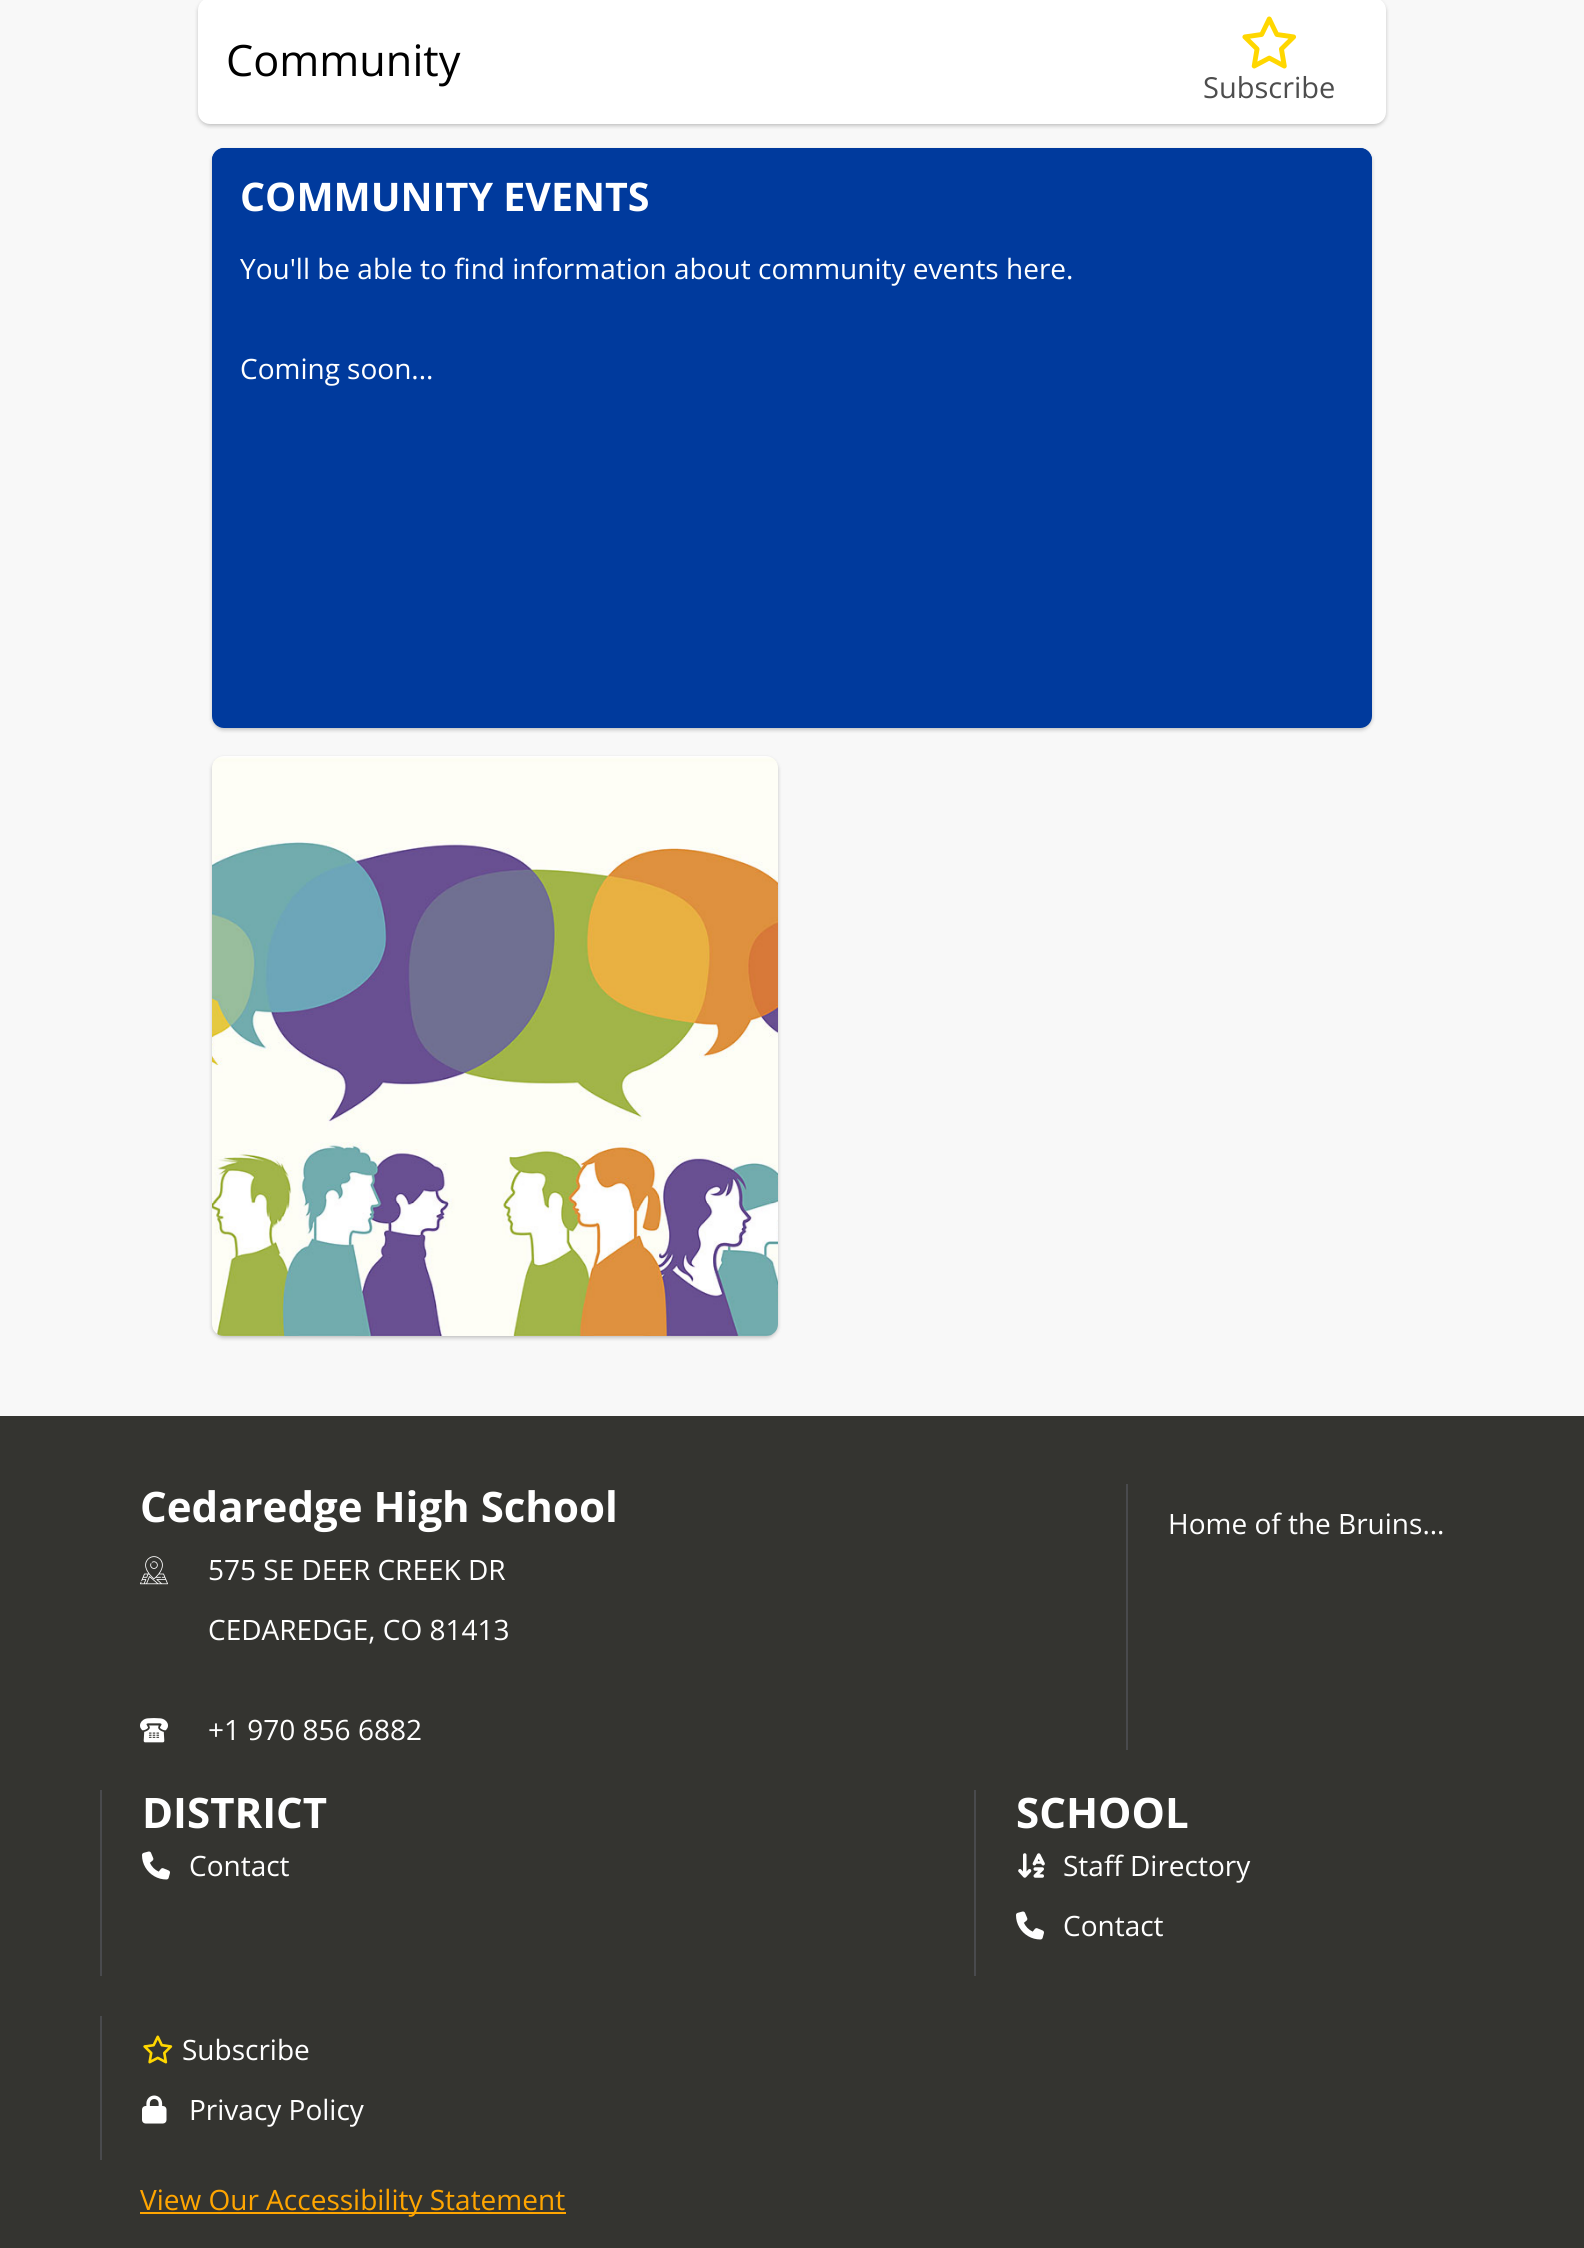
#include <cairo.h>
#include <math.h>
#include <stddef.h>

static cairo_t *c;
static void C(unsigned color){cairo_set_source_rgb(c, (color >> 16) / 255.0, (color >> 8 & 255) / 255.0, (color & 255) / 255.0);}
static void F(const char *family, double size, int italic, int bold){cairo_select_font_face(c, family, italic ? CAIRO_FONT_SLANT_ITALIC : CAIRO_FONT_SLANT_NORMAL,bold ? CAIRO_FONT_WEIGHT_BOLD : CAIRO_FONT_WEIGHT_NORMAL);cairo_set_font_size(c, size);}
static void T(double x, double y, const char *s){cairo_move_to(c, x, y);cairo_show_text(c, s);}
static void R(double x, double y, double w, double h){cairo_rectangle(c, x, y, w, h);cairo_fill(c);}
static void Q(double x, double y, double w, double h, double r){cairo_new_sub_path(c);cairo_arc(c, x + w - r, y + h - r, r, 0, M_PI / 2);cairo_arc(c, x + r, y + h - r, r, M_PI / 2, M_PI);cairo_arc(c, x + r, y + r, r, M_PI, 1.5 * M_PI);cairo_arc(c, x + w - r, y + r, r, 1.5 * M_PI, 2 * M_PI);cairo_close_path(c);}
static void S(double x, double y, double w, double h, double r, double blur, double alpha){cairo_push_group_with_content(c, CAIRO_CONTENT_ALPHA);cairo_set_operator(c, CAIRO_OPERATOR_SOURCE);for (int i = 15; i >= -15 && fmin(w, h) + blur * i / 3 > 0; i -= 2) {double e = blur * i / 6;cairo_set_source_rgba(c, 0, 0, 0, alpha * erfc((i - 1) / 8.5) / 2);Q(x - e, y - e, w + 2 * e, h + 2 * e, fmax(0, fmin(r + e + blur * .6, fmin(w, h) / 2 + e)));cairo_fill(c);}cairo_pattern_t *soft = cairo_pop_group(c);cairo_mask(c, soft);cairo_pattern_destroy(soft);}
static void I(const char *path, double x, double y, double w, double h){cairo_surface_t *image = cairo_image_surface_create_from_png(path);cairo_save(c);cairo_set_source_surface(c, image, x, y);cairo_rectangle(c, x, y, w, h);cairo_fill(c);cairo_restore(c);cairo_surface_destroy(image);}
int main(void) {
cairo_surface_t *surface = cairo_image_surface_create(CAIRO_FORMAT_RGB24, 1584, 2248);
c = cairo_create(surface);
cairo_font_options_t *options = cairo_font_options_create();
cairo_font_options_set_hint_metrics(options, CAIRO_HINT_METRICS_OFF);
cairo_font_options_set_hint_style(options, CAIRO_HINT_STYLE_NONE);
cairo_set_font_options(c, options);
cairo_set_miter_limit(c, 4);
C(0xf8f8f8);
cairo_paint(c);
C(0x000000);
S(198,0,1188,126,12,2,.22);
C(0xffffff);
Q(198,-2,1188,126,12);
cairo_fill(c);
F("Open Sans",43.25,0,0);
C(0x000000);
T(226,76,"Community");
I("1.png",1242,16,55,53);
F("Open Sans",29,0,0);
C(0x4d4d4d);
T(1203,98,"Subscribe");
C(0x000000);
S(212,150,1160,580,12,2,.22);
C(0x003a9d);
Q(212,148,1160,580,12);
cairo_fill(c);
cairo_new_path(c);
cairo_move_to(c,224,148);
cairo_line_to(c,1360,148);
cairo_curve_to(c,1366.5,148,1372,153.5,1372,160);
cairo_line_to(c,1372,220);
cairo_line_to(c,212,220);
cairo_line_to(c,212,160);
cairo_curve_to(c,212,153.5,217.5,148,224,148);
cairo_close_path(c);
cairo_fill(c);
F("Open Sans",39.4,0,1);
C(0xffffff);
T(240,211,"COMMUNITY EVENTS");
F("Open Sans",28,0,0);
T(240,279,"You'll be able to find information about community events here.");
T(240,379,"Coming soon...");
C(0x000000);
S(212,758,566,580,12,2,.22);
I("2.png",212,756,566,580);
C(0x343430);
R(0,1416,1584,832);
F("Open Sans",42,0,1);
C(0xffffff);
T(140,1522,"Cedaredge High School");
I("3.png",140,1556,28,29);
F("Open Sans",28,0,0);
T(208,1580,"575 SE DEER CREEK DR");
T(208,1640,"CEDAREDGE, CO 81413");
I("4.png",140,1718,28,25);
T(208,1740,"+1 970 856 6882");
C(0x494a4d);
R(1126,1484,2,266);
C(0xffffff);
T(1168,1534,"Home of the Bruins...");
C(0x494a4d);
R(100,1790,2,186);
F("Open Sans",42,0,1);
C(0xffffff);
T(142,1828,"DISTRICT");
I("5.png",142,1851,28,29);
F("Open Sans",28,0,0);
T(189,1876,"Contact");
C(0x494a4d);
R(974,1790,2,186);
F("Open Sans",42,0,1);
C(0xffffff);
T(1016,1828,"SCHOOL");
I("6.png",1018,1853,27,25);
F("Open Sans",28,0,0);
T(1063,1876,"Staff Directory");
I("5.png",1016,1911,28,29);
T(1063,1936,"Contact");
C(0x494a4d);
R(100,2016,2,144);
I("7.png",143,2035,30,29);
C(0xffffff);
T(182,2060,"Subscribe");
I("8.png",142,2095,25,29);
T(189,2120,"Privacy Policy");
C(0xffa500);
R(140,2212,426,2);
T(140,2210,"View Our Accessibility Statement");
cairo_surface_write_to_png(surface, "o.png");
cairo_font_options_destroy(options);
cairo_destroy(c);
cairo_surface_destroy(surface);
return 0;
}
